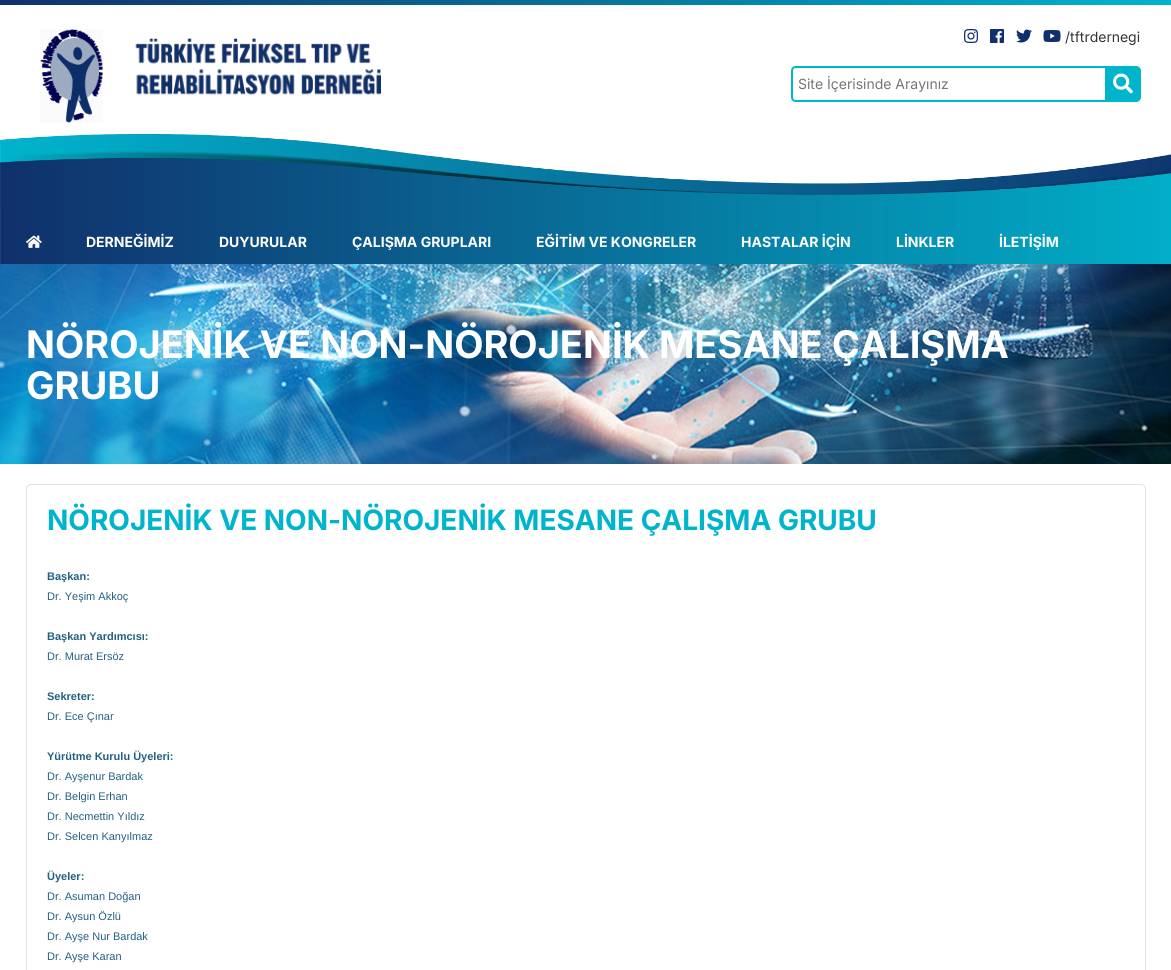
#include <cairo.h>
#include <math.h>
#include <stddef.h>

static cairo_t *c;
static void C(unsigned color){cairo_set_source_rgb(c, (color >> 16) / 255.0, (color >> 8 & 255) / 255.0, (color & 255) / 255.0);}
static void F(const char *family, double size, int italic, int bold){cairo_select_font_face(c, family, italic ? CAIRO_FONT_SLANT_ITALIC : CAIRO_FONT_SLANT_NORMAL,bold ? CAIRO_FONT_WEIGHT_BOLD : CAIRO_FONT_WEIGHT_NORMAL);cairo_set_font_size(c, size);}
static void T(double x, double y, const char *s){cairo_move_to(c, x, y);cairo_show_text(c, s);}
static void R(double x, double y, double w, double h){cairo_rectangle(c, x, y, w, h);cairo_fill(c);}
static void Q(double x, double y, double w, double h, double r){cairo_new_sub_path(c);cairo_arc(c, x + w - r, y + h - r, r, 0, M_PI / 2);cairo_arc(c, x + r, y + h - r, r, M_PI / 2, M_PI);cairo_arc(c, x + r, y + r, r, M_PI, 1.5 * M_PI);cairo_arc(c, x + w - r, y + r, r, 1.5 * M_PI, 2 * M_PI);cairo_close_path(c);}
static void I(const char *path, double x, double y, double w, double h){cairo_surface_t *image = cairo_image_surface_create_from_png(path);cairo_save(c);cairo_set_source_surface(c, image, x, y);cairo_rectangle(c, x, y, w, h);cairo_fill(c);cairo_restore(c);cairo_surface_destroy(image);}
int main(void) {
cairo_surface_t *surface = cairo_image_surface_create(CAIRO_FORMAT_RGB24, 1171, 970);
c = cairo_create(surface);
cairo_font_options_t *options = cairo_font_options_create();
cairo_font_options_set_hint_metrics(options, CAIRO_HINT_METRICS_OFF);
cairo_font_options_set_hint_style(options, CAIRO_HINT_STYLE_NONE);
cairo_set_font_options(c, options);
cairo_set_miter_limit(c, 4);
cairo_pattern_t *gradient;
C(0xffffff);
cairo_paint(c);
gradient = cairo_pattern_create_linear(0,2.5,1171,2.5);
cairo_pattern_add_color_stop_rgba(gradient,0,0.063,0.188,0.42,1);
cairo_pattern_add_color_stop_rgba(gradient,1,0,0.706,0.8,1);
cairo_set_source(c,gradient);
cairo_pattern_destroy(gradient);
R(0,0,1171,5);
I("1.png",40,29,63,94);
I("2.png",135,37,246,58);
I("3.png",964,29,14,14);
I("4.png",990,29,14,14);
I("5.png",1016,29,16,14);
I("6.png",1043,30,18,12);
F("Inter",14,0,0);
C(0x353435);
T(1065,42,"/tftrdernegi");
C(0x00b4cc);
cairo_set_fill_rule(c,CAIRO_FILL_RULE_EVEN_ODD);
cairo_new_path(c);
cairo_move_to(c,796,66);
cairo_line_to(c,1105,66);
cairo_line_to(c,1105,102);
cairo_line_to(c,796,102);
cairo_curve_to(c,793,102,791,100,791,97);
cairo_line_to(c,791,71);
cairo_curve_to(c,791,68,793,66,796,66);
cairo_close_path(c);
cairo_move_to(c,796,68);
cairo_line_to(c,1105,68);
cairo_line_to(c,1105,100);
cairo_line_to(c,796,100);
cairo_curve_to(c,794,100,793,99,793,97);
cairo_line_to(c,793,71);
cairo_curve_to(c,793,69,794,68,796,68);
cairo_close_path(c);
cairo_fill(c);
C(0x757575);
T(798,89,"Site İçerisinde Arayınız");
C(0x00b4cc);
cairo_new_path(c);
cairo_move_to(c,1105.5,66.5);
cairo_line_to(c,1136,66.5);
cairo_curve_to(c,1138.5,66.5,1140.5,68.5,1140.5,71);
cairo_line_to(c,1140.5,97);
cairo_curve_to(c,1140.5,99.5,1138.5,101.5,1136,101.5);
cairo_line_to(c,1105.5,101.5);
cairo_close_path(c);
cairo_fill_preserve(c);
cairo_set_line_width(c,1);
cairo_stroke(c);
I("7.png",1113,73,20,21);
I("8.png",0,134,1171,130);
I("9.png",26,235,16,13);
F("Inter",14,0,1);
C(0xffffff);
T(86,247,"DERNEĞİMİZ");
T(219,247,"DUYURULAR");
T(352,247,"ÇALIŞMA GRUPLARI");
T(536,247,"EĞİTİM VE KONGRELER");
T(741,247,"HASTALAR İÇİN");
T(896,247,"LİNKLER");
T(999,247,"İLETİŞİM");
I("10.png",0,264,1171,200);
F("Inter",38,0,1);
T(26,358,"NÖROJENİK VE NON-NÖROJENİK MESANE ÇALIŞMA");
T(26,399,"GRUBU");
Q(26.5,484.5,1119,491,4.5);
C(0xe2e2e2);
cairo_stroke(c);
F("Inter",28,0,1);
C(0x00b4cc);
T(47,530,"NÖROJENİK VE NON-NÖROJENİK MESANE ÇALIŞMA GRUBU");
F("Liberation Sans",11,0,1);
C(0x226081);
T(47,580,"Başkan:");
F("Liberation Sans",11,0,0);
T(47,600,"Dr. Yeşim Akkoç");
F("Liberation Sans",11,0,1);
T(47,640,"Başkan Yardımcısı:");
F("Liberation Sans",11,0,0);
T(47,660,"Dr. Murat Ersöz");
F("Liberation Sans",11,0,1);
T(47,700,"Sekreter:");
F("Liberation Sans",11,0,0);
T(47,720,"Dr. Ece Çınar");
F("Liberation Sans",11,0,1);
T(47,760,"Yürütme Kurulu Üyeleri:");
F("Liberation Sans",11,0,0);
T(47,780,"Dr. Ayşenur Bardak");
T(47,800,"Dr. Belgin Erhan");
T(47,820,"Dr. Necmettin Yıldız");
T(47,840,"Dr. Selcen Kanyılmaz");
F("Liberation Sans",11,0,1);
T(47,880,"Üyeler:");
F("Liberation Sans",11,0,0);
T(47,900,"Dr. Asuman Doğan");
T(47,920,"Dr. Aysun Özlü");
T(47,940,"Dr. Ayşe Nur Bardak");
T(47,960,"Dr. Ayşe Karan");
cairo_surface_write_to_png(surface, "o.png");
cairo_font_options_destroy(options);
cairo_destroy(c);
cairo_surface_destroy(surface);
return 0;
}
